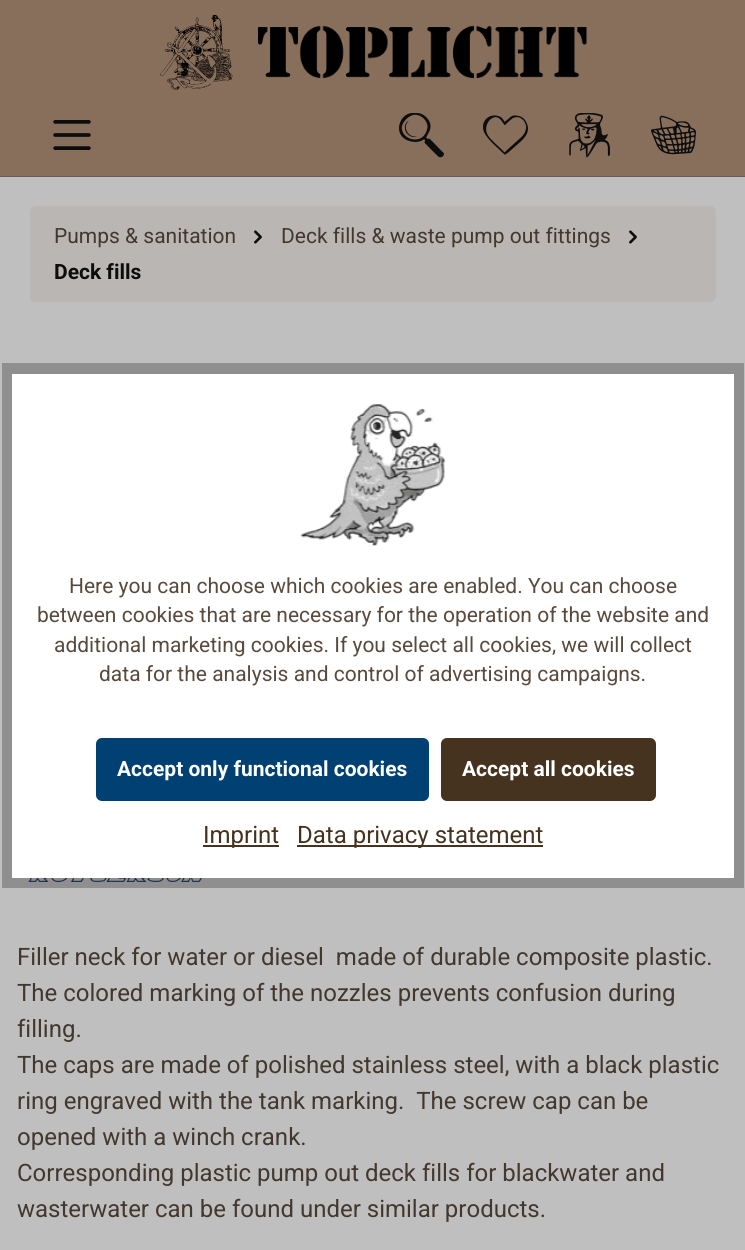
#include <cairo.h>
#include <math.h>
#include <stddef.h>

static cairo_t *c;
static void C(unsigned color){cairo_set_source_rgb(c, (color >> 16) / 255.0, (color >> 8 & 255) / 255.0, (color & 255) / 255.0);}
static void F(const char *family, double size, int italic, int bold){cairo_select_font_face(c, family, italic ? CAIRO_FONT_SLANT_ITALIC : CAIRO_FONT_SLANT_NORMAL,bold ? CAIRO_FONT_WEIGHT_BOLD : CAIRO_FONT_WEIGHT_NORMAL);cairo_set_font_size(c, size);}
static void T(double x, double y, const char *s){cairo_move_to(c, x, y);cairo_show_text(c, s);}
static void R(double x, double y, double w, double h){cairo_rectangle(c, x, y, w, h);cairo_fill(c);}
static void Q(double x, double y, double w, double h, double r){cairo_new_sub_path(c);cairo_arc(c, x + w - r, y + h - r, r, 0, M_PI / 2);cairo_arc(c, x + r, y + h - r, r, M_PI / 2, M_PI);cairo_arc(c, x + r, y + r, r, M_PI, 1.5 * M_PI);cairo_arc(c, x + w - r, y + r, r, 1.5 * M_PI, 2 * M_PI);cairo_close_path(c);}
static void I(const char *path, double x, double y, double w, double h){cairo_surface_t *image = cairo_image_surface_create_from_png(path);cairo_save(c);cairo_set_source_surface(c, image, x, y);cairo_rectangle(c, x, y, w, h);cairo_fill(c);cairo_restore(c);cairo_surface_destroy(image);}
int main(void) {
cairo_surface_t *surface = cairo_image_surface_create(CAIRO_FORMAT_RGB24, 745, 1250);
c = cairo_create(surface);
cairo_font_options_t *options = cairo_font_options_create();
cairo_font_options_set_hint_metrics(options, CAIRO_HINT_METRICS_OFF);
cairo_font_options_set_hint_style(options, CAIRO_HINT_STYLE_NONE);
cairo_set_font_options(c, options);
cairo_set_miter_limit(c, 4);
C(0xbfbfbf);
cairo_paint(c);
C(0x606060);
cairo_new_path(c);
cairo_move_to(c,0,176);
cairo_line_to(c,0,177);
cairo_line_to(c,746,177);
cairo_line_to(c,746,2);
cairo_line_to(c,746,176);
cairo_close_path(c);
cairo_fill(c);
C(0x886f5c);
R(0,0,745,176);
I("1.png",160,15,73,75);
I("2.png",258,25,329,53);
I("3.png",53,120,38,30);
I("4.png",399,113,45,45);
I("5.png",483,115,45,40);
I("6.png",569,113,41,45);
I("7.png",651,115,45,40);
C(0xb9b6b3);
Q(30,206,686,96,6);
cairo_fill(c);
F("Roboto",21,0,0);
C(0x43382e);
T(54,243,"Pumps & sanitation");
I("8.png",254,230,8,14);
T(281,243,"Deck fills & waste pump out fittings");
I("8.png",629,230,8,14);
F("Roboto",21,0,1);
C(0x0d0d0d);
T(54,279,"Deck fills");
I("9.png",28,878,181,4);
F("Roboto",24,0,0);
C(0x43382e);
T(17,965,"Filler neck for water or diesel  made of durable composite plastic.");
T(17,1001,"The colored marking of the nozzles prevents confusion during");
T(17,1037,"filling.");
T(17,1073,"The caps are made of polished stainless steel, with a black plastic");
T(17,1109,"ring engraved with the tank marking.  The screw cap can be");
T(17,1145,"opened with a winch crank.");
T(17,1181,"Corresponding plastic pump out deck fills for blackwater and");
T(17,1217,"wasterwater can be found under similar products.");
cairo_rectangle(c,7.5,368.5,731,514);
cairo_set_source_rgba(c,0,0,0,0.25);
cairo_set_line_width(c,11);
cairo_stroke(c);
C(0xffffff);
R(12,374,722,504);
I("10.png",300,404,146,142);
F("Roboto",21,0,0);
C(0x594a3d);
T(69,593,"Here you can choose which cookies are enabled. You can choose");
T(37,622,"between cookies that are necessary for the operation of the website and");
T(54,652,"additional marketing cookies. If you select all cookies, we will collect");
T(99,681,"data for the analysis and control of advertising campaigns.");
C(0x004072);
Q(97.5,739.5,330,60,4.5);
cairo_fill_preserve(c);
cairo_set_line_width(c,3);
cairo_stroke(c);
F("Roboto",21,0,1);
C(0xffffff);
T(117,776,"Accept only functional cookies");
C(0x45331f);
Q(442.5,739.5,212,60,4.5);
cairo_fill_preserve(c);
cairo_stroke(c);
C(0xffffff);
T(462,776,"Accept all cookies");
C(0x45331f);
R(203,845,76,2);
F("Roboto",24,0,0);
T(203,843,"Imprint");
R(297,845,246,2);
T(297,843,"Data privacy statement");
cairo_surface_write_to_png(surface, "o.png");
cairo_font_options_destroy(options);
cairo_destroy(c);
cairo_surface_destroy(surface);
return 0;
}
